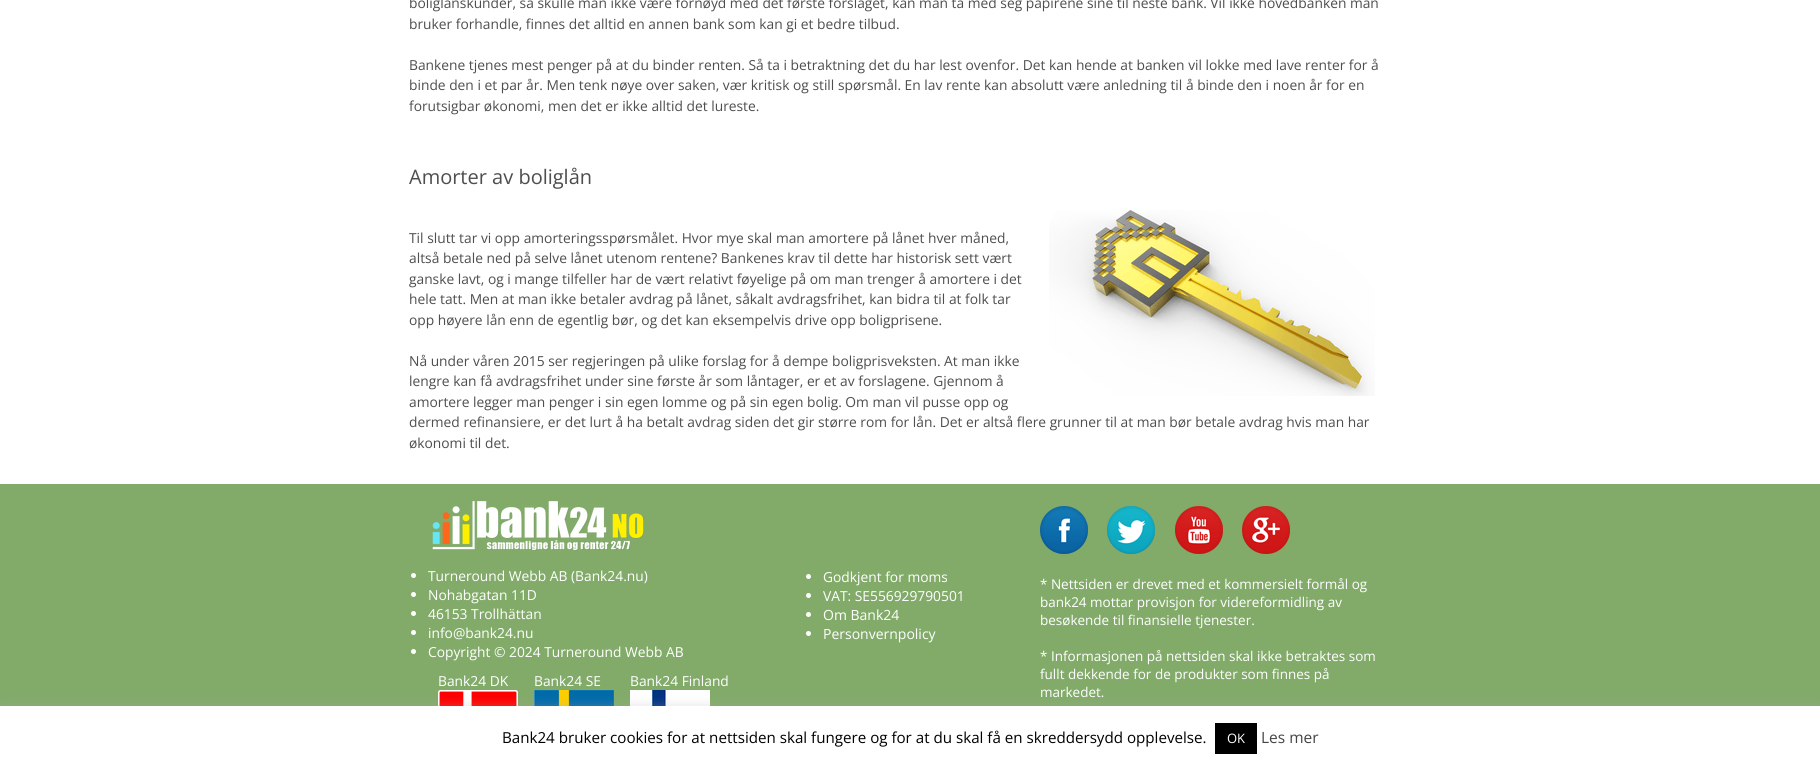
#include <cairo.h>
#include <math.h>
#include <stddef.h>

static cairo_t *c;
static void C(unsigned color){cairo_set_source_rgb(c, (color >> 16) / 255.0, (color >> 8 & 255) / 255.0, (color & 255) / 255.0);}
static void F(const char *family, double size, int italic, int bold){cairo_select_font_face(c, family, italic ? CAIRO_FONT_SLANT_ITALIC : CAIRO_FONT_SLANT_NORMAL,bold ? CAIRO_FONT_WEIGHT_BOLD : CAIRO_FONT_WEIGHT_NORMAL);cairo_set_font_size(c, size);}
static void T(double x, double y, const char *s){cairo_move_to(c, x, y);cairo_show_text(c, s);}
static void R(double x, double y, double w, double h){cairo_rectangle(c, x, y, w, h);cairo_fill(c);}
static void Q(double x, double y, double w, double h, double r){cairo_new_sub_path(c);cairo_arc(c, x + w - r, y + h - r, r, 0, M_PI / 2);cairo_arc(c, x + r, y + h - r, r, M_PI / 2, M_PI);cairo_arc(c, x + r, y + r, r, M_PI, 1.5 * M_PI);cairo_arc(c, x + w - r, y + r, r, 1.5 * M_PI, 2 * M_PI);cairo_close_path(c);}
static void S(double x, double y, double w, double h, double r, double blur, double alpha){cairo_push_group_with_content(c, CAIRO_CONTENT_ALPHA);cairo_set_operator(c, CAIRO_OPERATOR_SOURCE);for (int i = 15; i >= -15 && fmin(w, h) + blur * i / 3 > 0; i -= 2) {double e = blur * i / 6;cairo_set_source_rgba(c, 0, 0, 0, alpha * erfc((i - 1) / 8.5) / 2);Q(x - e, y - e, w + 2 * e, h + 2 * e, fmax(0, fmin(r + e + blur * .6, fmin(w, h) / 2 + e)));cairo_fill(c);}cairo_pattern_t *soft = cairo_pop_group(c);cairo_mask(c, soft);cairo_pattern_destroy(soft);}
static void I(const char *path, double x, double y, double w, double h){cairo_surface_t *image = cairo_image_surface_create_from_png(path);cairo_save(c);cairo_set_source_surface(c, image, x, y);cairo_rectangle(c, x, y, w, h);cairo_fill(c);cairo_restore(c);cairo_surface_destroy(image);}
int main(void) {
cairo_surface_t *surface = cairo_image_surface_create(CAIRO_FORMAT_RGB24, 1820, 766);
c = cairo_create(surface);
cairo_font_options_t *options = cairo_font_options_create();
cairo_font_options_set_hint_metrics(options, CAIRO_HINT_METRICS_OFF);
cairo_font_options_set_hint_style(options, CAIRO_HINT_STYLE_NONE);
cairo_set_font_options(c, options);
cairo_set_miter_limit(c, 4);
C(0xffffff);
cairo_paint(c);
F("Open Sans",13.8,0,0);
C(0x4f4d4d);
T(409,8,"boliglånskunder, så skulle man ikke være fornøyd med det første forslaget, kan man ta med seg papirene sine til neste bank. Vil ikke hovedbanken man");
T(409,29,"bruker forhandle, finnes det alltid en annen bank som kan gi et bedre tilbud.");
T(409,70,"Bankene tjenes mest penger på at du binder renten. Så ta i betraktning det du har lest ovenfor. Det kan hende at banken vil lokke med lave renter for å");
T(409,90,"binde den i et par år. Men tenk nøye over saken, vær kritisk og still spørsmål. En lav rente kan absolutt være anledning til å binde den i noen år for en");
T(409,111,"forutsigbar økonomi, men det er ikke alltid det lureste.");
F("Open Sans",20,0,0);
T(409,184,"Amorter av boliglån");
F("Open Sans",13.8,0,0);
T(409,243,"Til slutt tar vi opp amorteringsspørsmålet. Hvor mye skal man amortere på lånet hver måned,");
I("1.png",1049,210,326,186);
T(409,263,"altså betale ned på selve lånet utenom rentene? Bankenes krav til dette har historisk sett vært");
T(409,284,"ganske lavt, og i mange tilfeller har de vært relativt føyelige på om man trenger å amortere i det");
T(409,304,"hele tatt. Men at man ikke betaler avdrag på lånet, såkalt avdragsfrihet, kan bidra til at folk tar");
T(409,325,"opp høyere lån enn de egentlig bør, og det kan eksempelvis drive opp boligprisene.");
T(409,366,"Nå under våren 2015 ser regjeringen på ulike forslag for å dempe boligprisveksten. At man ikke");
T(409,386,"lengre kan få avdragsfrihet under sine første år som låntager, er et av forslagene. Gjennom å");
T(409,407,"amortere legger man penger i sin egen lomme og på sin egen bolig. Om man vil pusse opp og");
T(409,427,"dermed refinansiere, er det lurt å ha betalt avdrag siden det gir større rom for lån. Det er altså flere grunner til at man bør betale avdrag hvis man har");
T(409,448,"økonomi til det.");
C(0x82ab6a);
R(0,484,1820,222);
I("2.png",432,501,212,50);
C(0xffffff);
cairo_arc(c,413.5,575.5,2.5,0,2 * M_PI);
cairo_fill(c);
T(428,581,"Turneround Webb AB (Bank24.nu)");
cairo_new_path(c);
cairo_arc(c,413.5,594.5,2.5,0,2 * M_PI);
cairo_fill(c);
T(428,600,"Nohabgatan 11D");
cairo_new_path(c);
cairo_arc(c,413.5,613.5,2.5,0,2 * M_PI);
cairo_fill(c);
T(428,619,"46153 Trollhättan");
cairo_new_path(c);
cairo_arc(c,413.5,632.5,2.5,0,2 * M_PI);
cairo_fill(c);
T(428,638,"info@bank24.nu");
cairo_new_path(c);
cairo_arc(c,413.5,651.5,2.5,0,2 * M_PI);
cairo_fill(c);
T(428,657,"Copyright © 2024 Turneround Webb AB");
T(438,686,"Bank24 DK");
I("3.png",438,690,80,16);
T(534,686,"Bank24 SE");
I("4.png",534,690,80,16);
T(630,686,"Bank24 Finland");
I("5.png",630,690,80,16);
cairo_arc(c,808.5,576.5,2.5,0,2 * M_PI);
cairo_fill(c);
T(823,582,"Godkjent for moms");
cairo_new_path(c);
cairo_arc(c,808.5,595.5,2.5,0,2 * M_PI);
cairo_fill(c);
T(823,601,"VAT: SE556929790501");
cairo_new_path(c);
cairo_arc(c,808.5,614.5,2.5,0,2 * M_PI);
cairo_fill(c);
F("Open Sans",14,0,0);
T(823,620,"Om Bank24");
cairo_new_path(c);
cairo_arc(c,808.5,633.5,2.5,0,2 * M_PI);
cairo_fill(c);
T(823,639,"Personvernpolicy");
I("6.png",1040,506,48,48);
I("7.png",1107,506,48,48);
I("8.png",1175,506,48,48);
I("9.png",1242,506,48,48);
F("Open Sans",13.5,0,0);
T(1040,589,"* Nettsiden er drevet med et kommersielt formål og");
T(1040,607,"bank24 mottar provisjon for videreformidling av");
T(1040,625,"besøkende til finansielle tjenester.");
T(1040,661,"* Informasjonen på nettsiden skal ikke betraktes som");
T(1040,679,"fullt dekkende for de produkter som finnes på");
T(1040,697,"markedet.");
C(0xacabab);
S(0,705,1820,60,0,5,.3);
C(0xffffff);
R(0,706,1820,60);
F("Open Sans",15.15,0,0);
C(0x000000);
T(502,743,"Bank24 bruker cookies for at nettsiden skal fungere og for at du skal få en skreddersydd opplevelse.");
R(1215,723,42,31);
F("Open Sans",13,0,0);
C(0xffffff);
T(1227,743,"OK");
F("Open Sans",15.5,0,0);
C(0x444444);
T(1261,743,"Les mer");
cairo_surface_write_to_png(surface, "o.png");
cairo_font_options_destroy(options);
cairo_destroy(c);
cairo_surface_destroy(surface);
return 0;
}
